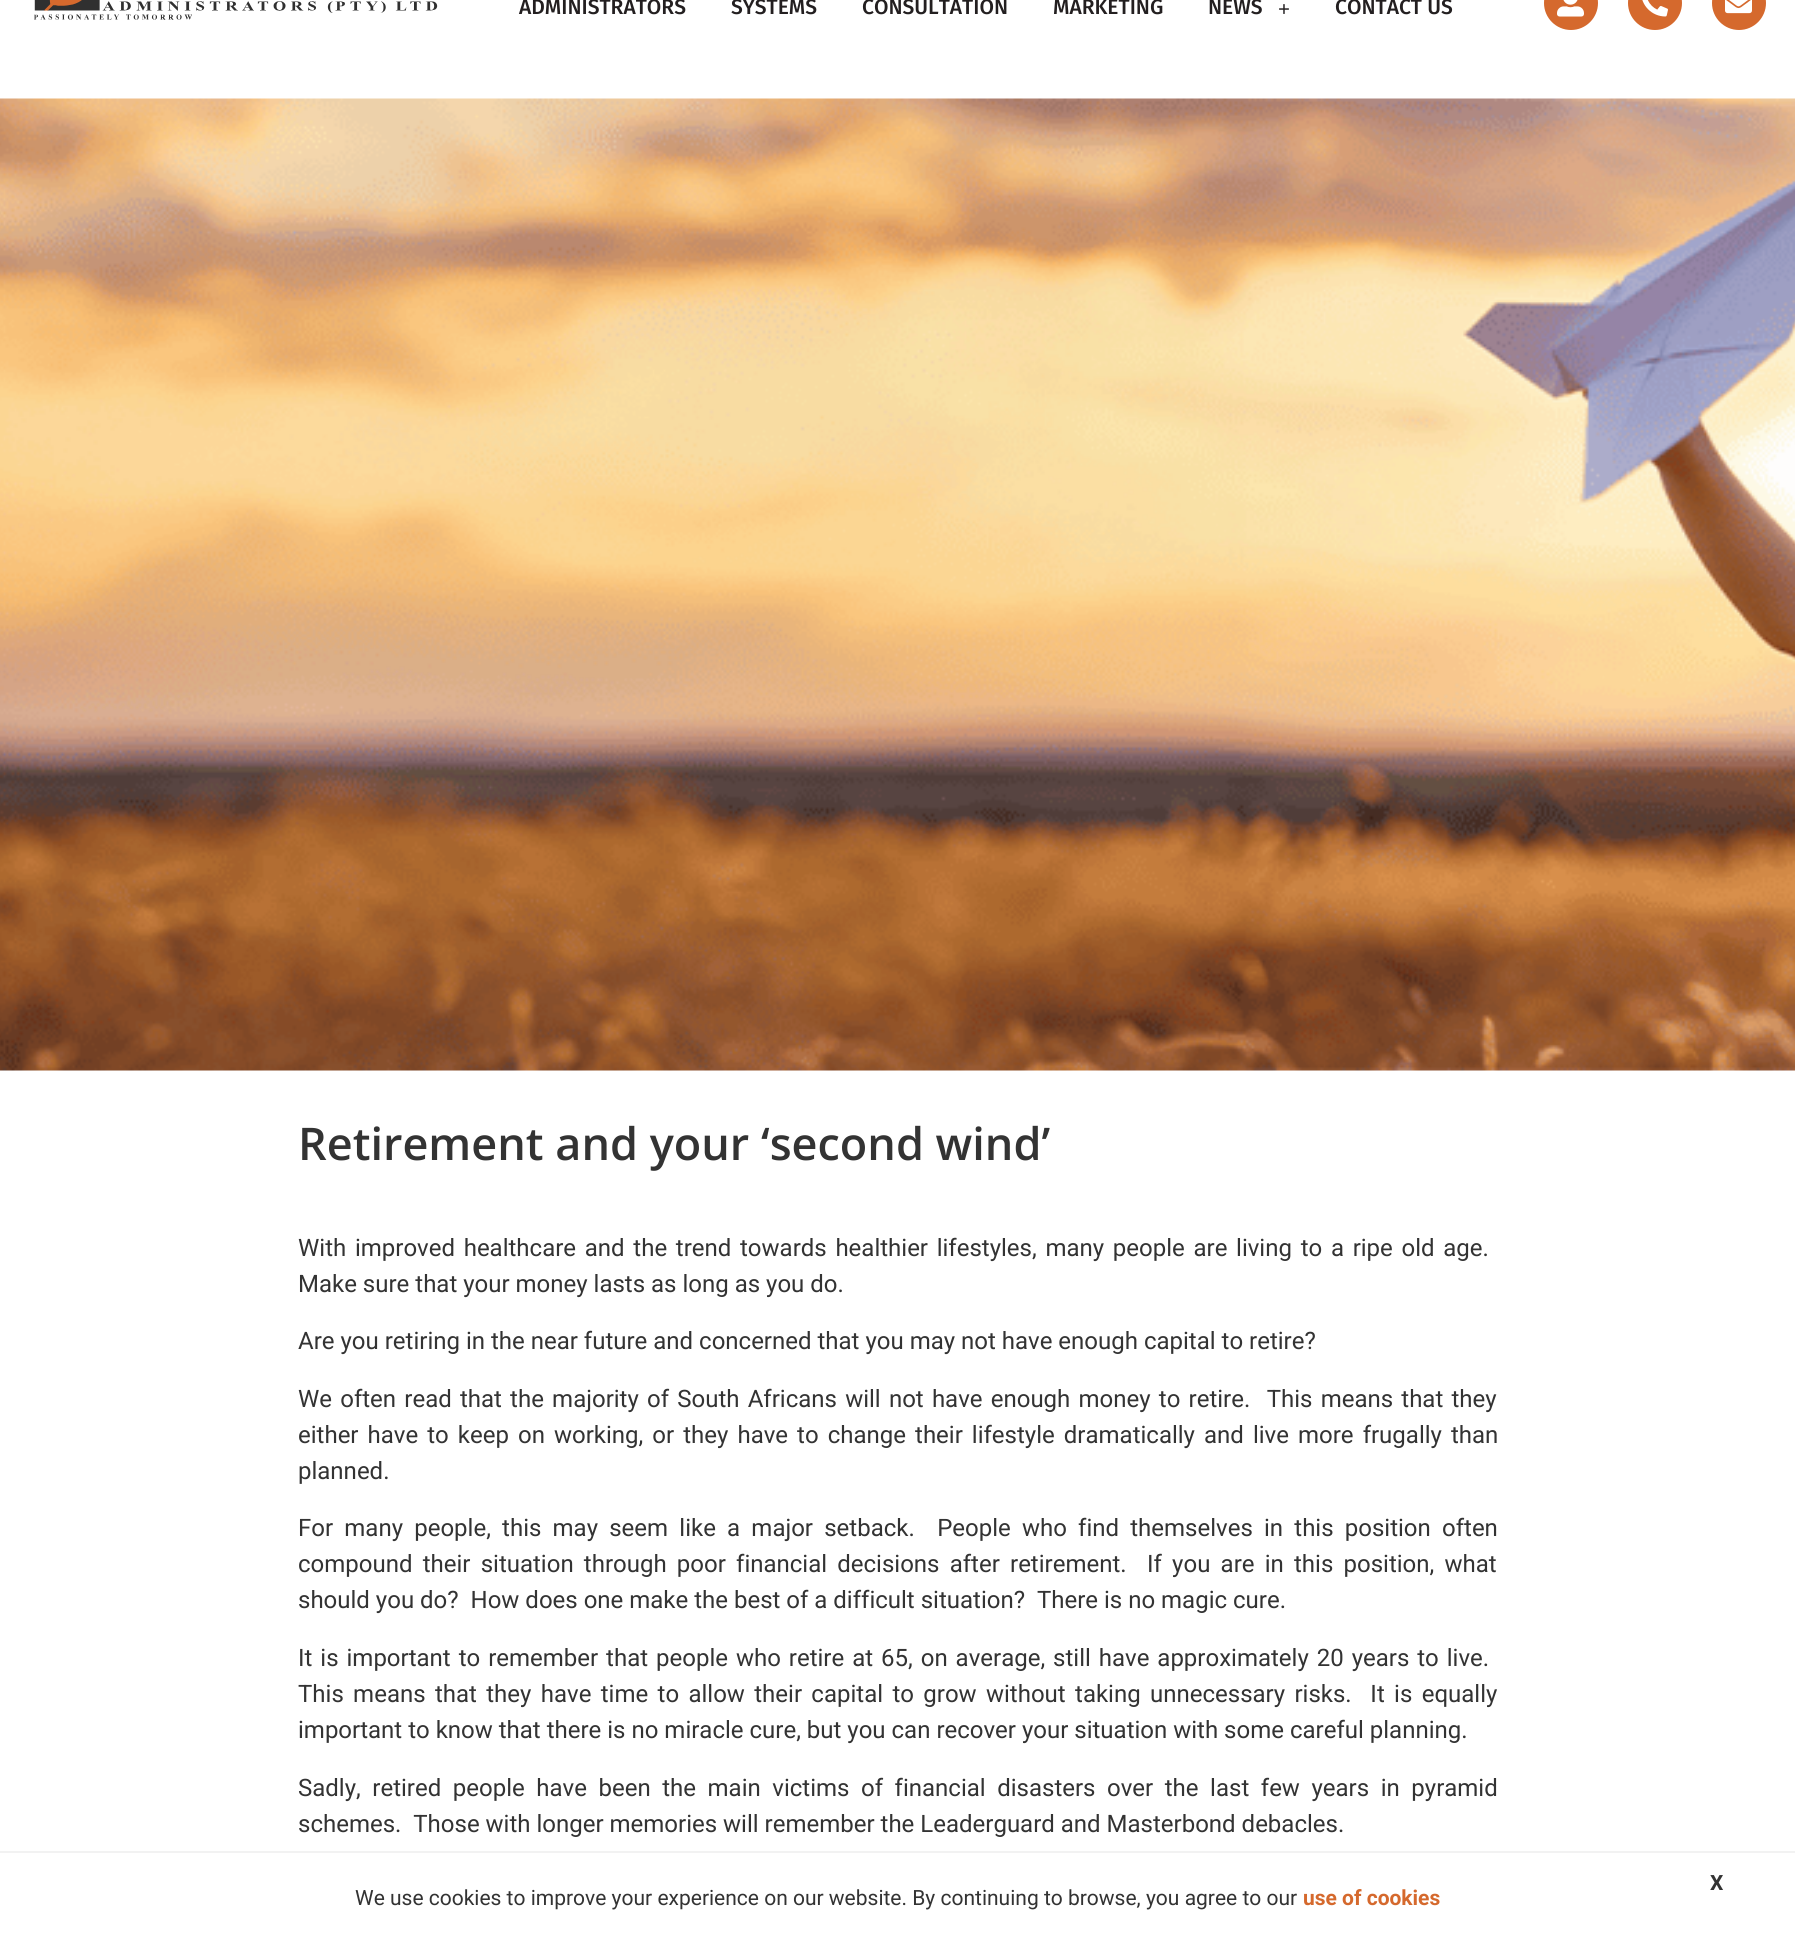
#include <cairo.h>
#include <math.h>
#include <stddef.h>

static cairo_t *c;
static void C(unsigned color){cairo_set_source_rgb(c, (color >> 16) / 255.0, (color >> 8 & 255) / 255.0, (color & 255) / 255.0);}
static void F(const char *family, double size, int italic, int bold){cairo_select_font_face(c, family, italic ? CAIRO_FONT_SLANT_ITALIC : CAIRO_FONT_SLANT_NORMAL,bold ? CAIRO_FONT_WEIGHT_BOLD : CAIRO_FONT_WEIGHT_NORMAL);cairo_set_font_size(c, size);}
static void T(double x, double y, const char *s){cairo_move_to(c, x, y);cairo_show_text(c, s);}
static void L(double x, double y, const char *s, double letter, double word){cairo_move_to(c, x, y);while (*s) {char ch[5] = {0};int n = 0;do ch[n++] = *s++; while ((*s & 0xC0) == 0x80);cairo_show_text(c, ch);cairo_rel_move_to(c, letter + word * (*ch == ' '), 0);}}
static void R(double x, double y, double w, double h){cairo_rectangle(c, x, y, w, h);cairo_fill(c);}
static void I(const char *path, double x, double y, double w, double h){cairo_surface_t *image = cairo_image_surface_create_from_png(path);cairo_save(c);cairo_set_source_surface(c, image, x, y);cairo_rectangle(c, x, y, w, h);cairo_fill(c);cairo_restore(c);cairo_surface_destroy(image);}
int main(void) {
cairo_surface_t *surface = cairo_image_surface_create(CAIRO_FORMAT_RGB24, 1795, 1943);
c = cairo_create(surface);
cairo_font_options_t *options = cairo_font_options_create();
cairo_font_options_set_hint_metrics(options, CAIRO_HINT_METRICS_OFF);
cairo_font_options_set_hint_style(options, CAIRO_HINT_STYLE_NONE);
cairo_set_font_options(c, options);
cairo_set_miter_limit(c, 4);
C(0xffffff);
cairo_paint(c);
I("1.png",34,0,404,20);
F("Fira Sans Medium",21,0,0);
C(0x231f20);
T(519,14,"ADMINISTRATORS");
T(731,14,"SYSTEMS");
T(862,14,"CONSULTATION");
T(1053,14,"MARKETING");
T(1208,14,"NEWS");
F("Liberation Serif",21,0,1);
T(1278,16,"+");
F("Fira Sans Medium",21,0,0);
T(1335,14,"CONTACT US");
C(0xd5692d);
cairo_new_path(c);
cairo_arc(c,1571,3,27,0,2 * M_PI);
cairo_fill(c);
I("2.png",1557,0,27,17);
cairo_arc(c,1655,3,27,0,2 * M_PI);
cairo_fill(c);
I("3.png",1642,0,26,17);
cairo_arc(c,1739,3,27,0,2 * M_PI);
cairo_fill(c);
I("4.png",1725,0,27,14);
I("5.png",0,98,1795,973);
F("Open Sans SemiBold",45,0,0);
C(0x333333);
T(298,1160,"Retirement and your ‘second wind’");
F("Roboto",24,0,0);
L(298,1256,"With improved healthcare and the trend towards healthier lifestyles, many people are living to a ripe old age.",0,2.75);
T(298,1292,"Make sure that your money lasts as long as you do.");
T(298,1349,"Are you retiring in the near future and concerned that you may not have enough capital to retire?");
L(298,1407,"We often read that the majority of South Africans will not have enough money to retire.  This means that they",0,2.25);
L(298,1443,"either have to keep on working, or they have to change their lifestyle dramatically and live more frugally than",0,3.1);
T(298,1479,"planned.");
L(298,1536,"For many people, this may seem like a major setback.  People who find themselves in this position often",0,5.25);
L(298,1572,"compound their situation through poor financial decisions after retirement.  If you are in this position, what",0,4.25);
T(298,1608,"should you do?  How does one make the best of a difficult situation?  There is no magic cure.");
L(298,1666,"It is important to remember that people who retire at 65, on average, still have approximately 20 years to live.",0,2);
L(298,1702,"This means that they have time to allow their capital to grow without taking unnecessary risks.  It is equally",0,3.4);
T(298,1738,"important to know that there is no miracle cure, but you can recover your situation with some careful planning.");
L(298,1796,"Sadly, retired people have been the main victims of financial disasters over the last few years in pyramid",0,5.6);
T(298,1832,"schemes.  Those with longer memories will remember the Leaderguard and Masterbond debacles.");
C(0xf2f2f2);
R(0,1851,1795,2);
F("Roboto",21,0,1);
C(0x333333);
T(1710,1890,"X");
F("Roboto",21,0,0);
T(355,1905,"We use cookies to improve your experience on our website. By continuing to browse, you agree to our");
F("Roboto",21,0,1);
C(0xd5692d);
T(1303,1905,"use of cookies");
cairo_surface_write_to_png(surface, "o.png");
cairo_font_options_destroy(options);
cairo_destroy(c);
cairo_surface_destroy(surface);
return 0;
}
